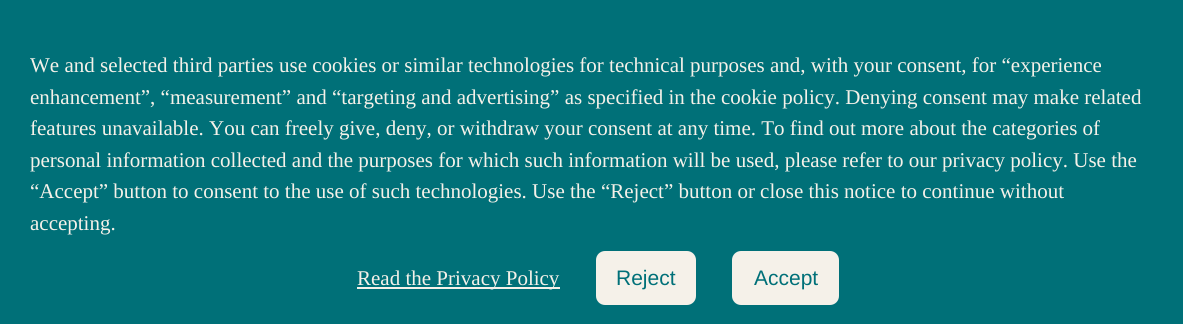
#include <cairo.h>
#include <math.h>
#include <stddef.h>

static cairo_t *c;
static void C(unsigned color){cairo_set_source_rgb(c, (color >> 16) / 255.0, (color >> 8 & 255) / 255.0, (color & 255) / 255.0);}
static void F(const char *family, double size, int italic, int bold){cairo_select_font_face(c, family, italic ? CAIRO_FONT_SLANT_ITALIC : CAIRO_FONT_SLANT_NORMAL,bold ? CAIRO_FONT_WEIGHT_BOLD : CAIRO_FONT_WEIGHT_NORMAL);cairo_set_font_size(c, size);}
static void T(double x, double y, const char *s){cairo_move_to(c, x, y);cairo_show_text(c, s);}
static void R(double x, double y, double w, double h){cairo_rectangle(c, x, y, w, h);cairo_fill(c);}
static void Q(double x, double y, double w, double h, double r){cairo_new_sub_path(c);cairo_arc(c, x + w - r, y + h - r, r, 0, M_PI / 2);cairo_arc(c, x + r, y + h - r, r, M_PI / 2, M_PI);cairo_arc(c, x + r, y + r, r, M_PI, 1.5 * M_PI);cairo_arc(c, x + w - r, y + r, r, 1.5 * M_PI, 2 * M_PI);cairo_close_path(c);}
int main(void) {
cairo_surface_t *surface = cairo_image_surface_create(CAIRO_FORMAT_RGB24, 1183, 324);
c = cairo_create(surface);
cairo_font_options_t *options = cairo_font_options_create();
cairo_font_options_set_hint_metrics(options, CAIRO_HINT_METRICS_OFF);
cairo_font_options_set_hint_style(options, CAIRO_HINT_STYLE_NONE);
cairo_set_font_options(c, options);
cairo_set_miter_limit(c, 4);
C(0x007078);
cairo_paint(c);
F("Liberation Serif",21,0,0);
C(0xf5f1e9);
T(30,72,"We and selected third parties use cookies or similar technologies for technical purposes and, with your consent, for “experience");
T(30,104,"enhancement”, “measurement” and “targeting and advertising” as specified in the cookie policy. Denying consent may make related");
T(30,135,"features unavailable. You can freely give, deny, or withdraw your consent at any time. To find out more about the categories of");
T(30,167,"personal information collected and the purposes for which such information will be used, please refer to our privacy policy. Use the");
T(30,198,"“Accept” button to consent to the use of such technologies. Use the “Reject” button or close this notice to continue without");
T(30,230,"accepting.");
R(357,287,203,2);
T(357,285,"Read the Privacy Policy");
Q(596,251,100,54,9);
cairo_fill(c);
F("Liberation Sans",21,0,0);
C(0x007078);
T(616,285,"Reject");
C(0xf5f1e9);
Q(732,251,107,54,9);
cairo_fill(c);
C(0x007078);
T(754,285,"Accept");
cairo_surface_write_to_png(surface, "o.png");
cairo_font_options_destroy(options);
cairo_destroy(c);
cairo_surface_destroy(surface);
return 0;
}
